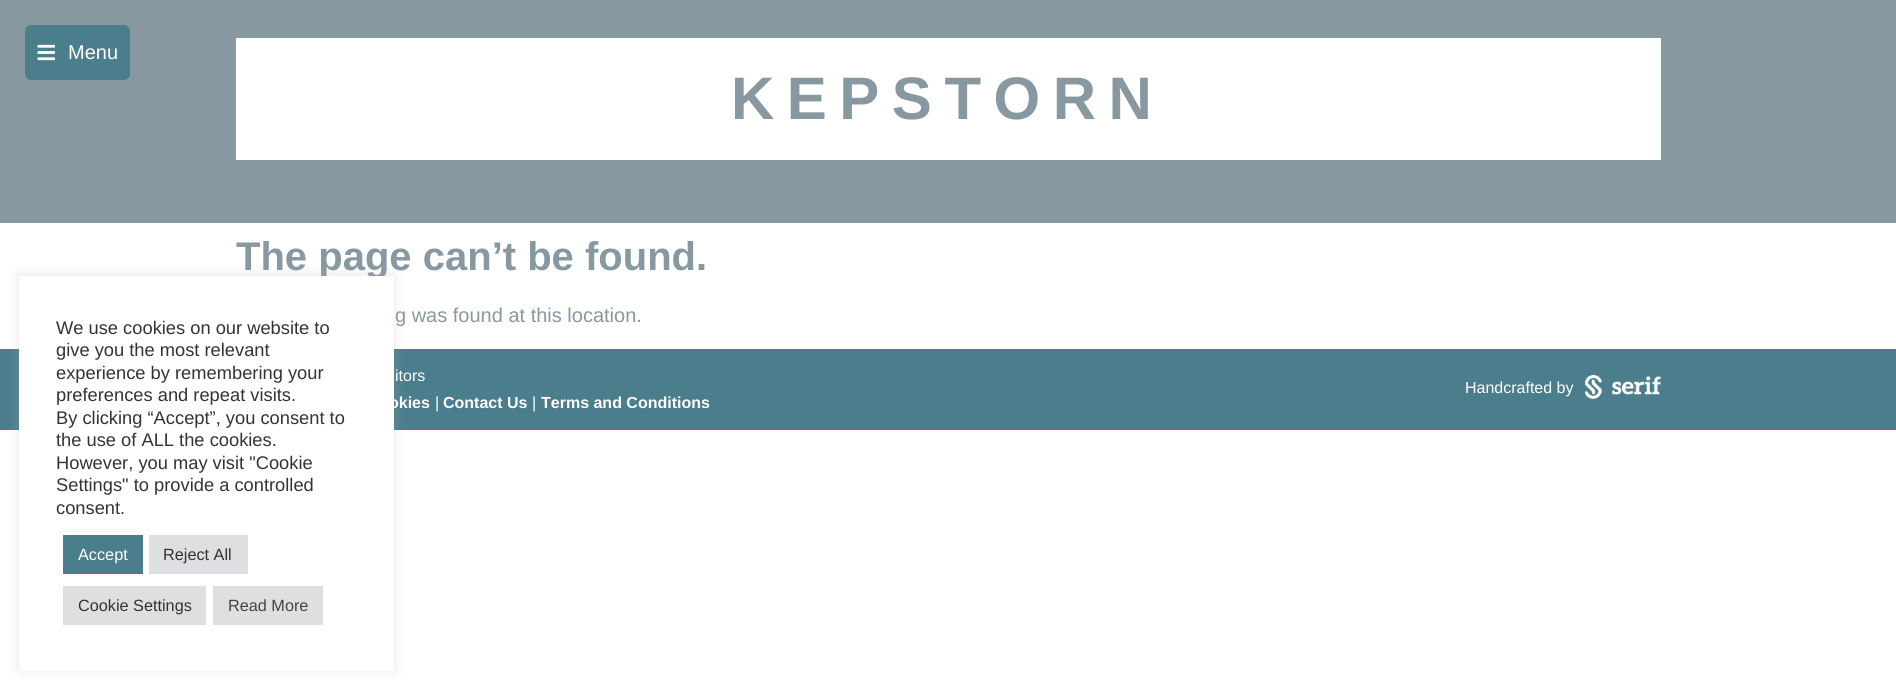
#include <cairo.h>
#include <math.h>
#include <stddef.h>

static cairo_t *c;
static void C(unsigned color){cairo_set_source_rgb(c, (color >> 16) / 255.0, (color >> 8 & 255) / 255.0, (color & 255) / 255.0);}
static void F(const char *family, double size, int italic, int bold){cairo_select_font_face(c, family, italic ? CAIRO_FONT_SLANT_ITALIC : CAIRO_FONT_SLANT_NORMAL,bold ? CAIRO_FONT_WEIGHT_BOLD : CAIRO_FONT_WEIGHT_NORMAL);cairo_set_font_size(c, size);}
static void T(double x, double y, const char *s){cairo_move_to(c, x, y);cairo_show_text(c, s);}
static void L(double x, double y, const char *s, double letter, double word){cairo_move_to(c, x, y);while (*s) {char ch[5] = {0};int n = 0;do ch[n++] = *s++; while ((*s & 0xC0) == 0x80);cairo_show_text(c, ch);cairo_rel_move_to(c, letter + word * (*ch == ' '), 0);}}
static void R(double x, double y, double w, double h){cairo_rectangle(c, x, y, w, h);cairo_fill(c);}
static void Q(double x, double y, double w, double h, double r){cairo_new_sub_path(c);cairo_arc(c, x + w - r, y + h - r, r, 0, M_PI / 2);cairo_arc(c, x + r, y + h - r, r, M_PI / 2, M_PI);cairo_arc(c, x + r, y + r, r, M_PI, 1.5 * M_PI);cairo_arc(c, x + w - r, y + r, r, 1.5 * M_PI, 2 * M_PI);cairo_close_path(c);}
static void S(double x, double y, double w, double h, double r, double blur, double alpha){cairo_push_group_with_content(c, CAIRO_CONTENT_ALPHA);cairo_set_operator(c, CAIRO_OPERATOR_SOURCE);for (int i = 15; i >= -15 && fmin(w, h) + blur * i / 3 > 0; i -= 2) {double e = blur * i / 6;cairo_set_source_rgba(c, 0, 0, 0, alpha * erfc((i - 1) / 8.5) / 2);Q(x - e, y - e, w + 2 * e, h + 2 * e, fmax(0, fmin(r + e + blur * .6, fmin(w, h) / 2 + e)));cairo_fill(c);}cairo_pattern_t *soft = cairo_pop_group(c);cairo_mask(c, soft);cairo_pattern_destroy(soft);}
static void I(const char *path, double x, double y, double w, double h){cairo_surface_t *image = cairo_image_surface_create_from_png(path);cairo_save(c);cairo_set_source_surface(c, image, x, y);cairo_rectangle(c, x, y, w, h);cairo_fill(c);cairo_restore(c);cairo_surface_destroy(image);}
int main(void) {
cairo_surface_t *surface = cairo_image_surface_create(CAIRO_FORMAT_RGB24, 1896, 690);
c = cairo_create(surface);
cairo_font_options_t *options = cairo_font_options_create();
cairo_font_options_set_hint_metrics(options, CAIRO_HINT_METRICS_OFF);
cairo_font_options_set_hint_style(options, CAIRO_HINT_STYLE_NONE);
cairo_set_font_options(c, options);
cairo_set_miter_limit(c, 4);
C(0xffffff);
cairo_paint(c);
C(0x8798a0);
R(0,0,1896,223);
C(0x4b7e8c);
Q(25,25,105,55,6);
cairo_fill(c);
I("1.png",37,44,18,17);
F("Liberation Sans",20,0,0);
C(0xffffff);
T(68,59,"Menu");
R(236,38,1425,122);
F("Liberation Sans",60,0,1);
C(0x8798a0);
L(731,119,"KEPSTORN",12.5,0);
F("Liberation Sans",40,0,1);
T(236,270,"The page can’t be found.");
F("Liberation Sans",20,0,0);
T(395,322,"g was found at this location.");
C(0x4b7e8c);
R(0,349,1896,81);
C(0xacabab);
S(19,275,375,395,0,6,.3);
C(0xffffff);
R(19,276,375,395);
F("Liberation Sans",18.3,0,0);
C(0x333333);
T(56,334,"We use cookies on our website to");
T(56,356,"give you the most relevant");
T(56,379,"experience by remembering your");
T(56,401,"preferences and repeat visits.");
T(56,424,"By clicking “Accept”, you consent to");
T(56,446,"the use of ALL the cookies.");
T(56,469,"However, you may visit \"Cookie");
T(56,491,"Settings\" to provide a controlled");
T(56,514,"consent.");
C(0x4b7e8c);
R(63,535,80,39);
F("Liberation Sans",16.25,0,0);
C(0xffffff);
T(78,560,"Accept");
C(0xdedfe0);
R(149,535,99,39);
C(0x333333);
T(163,560,"Reject All");
C(0xdedfe0);
R(63,586,143,39);
C(0x333333);
T(78,611,"Cookie Settings");
C(0xdedfe0);
R(213,586,110,39);
C(0x444444);
T(228,611,"Read More");
F("Liberation Sans",16,0,0);
C(0xffffff);
T(395,381,"itors");
F("Liberation Sans",16,0,1);
T(389,408,"okies");
F("Liberation Sans",16,0,0);
T(435,408,"|");
F("Liberation Sans",16,0,1);
T(443,408,"Contact Us");
F("Liberation Sans",16,0,0);
T(532,408,"|");
F("Liberation Sans",16,0,1);
T(541,408,"Terms and Conditions");
F("Liberation Sans",16,0,0);
T(1465,393,"Handcrafted by");
I("2.png",1585,375,77,24);
cairo_surface_write_to_png(surface, "o.png");
cairo_font_options_destroy(options);
cairo_destroy(c);
cairo_surface_destroy(surface);
return 0;
}
